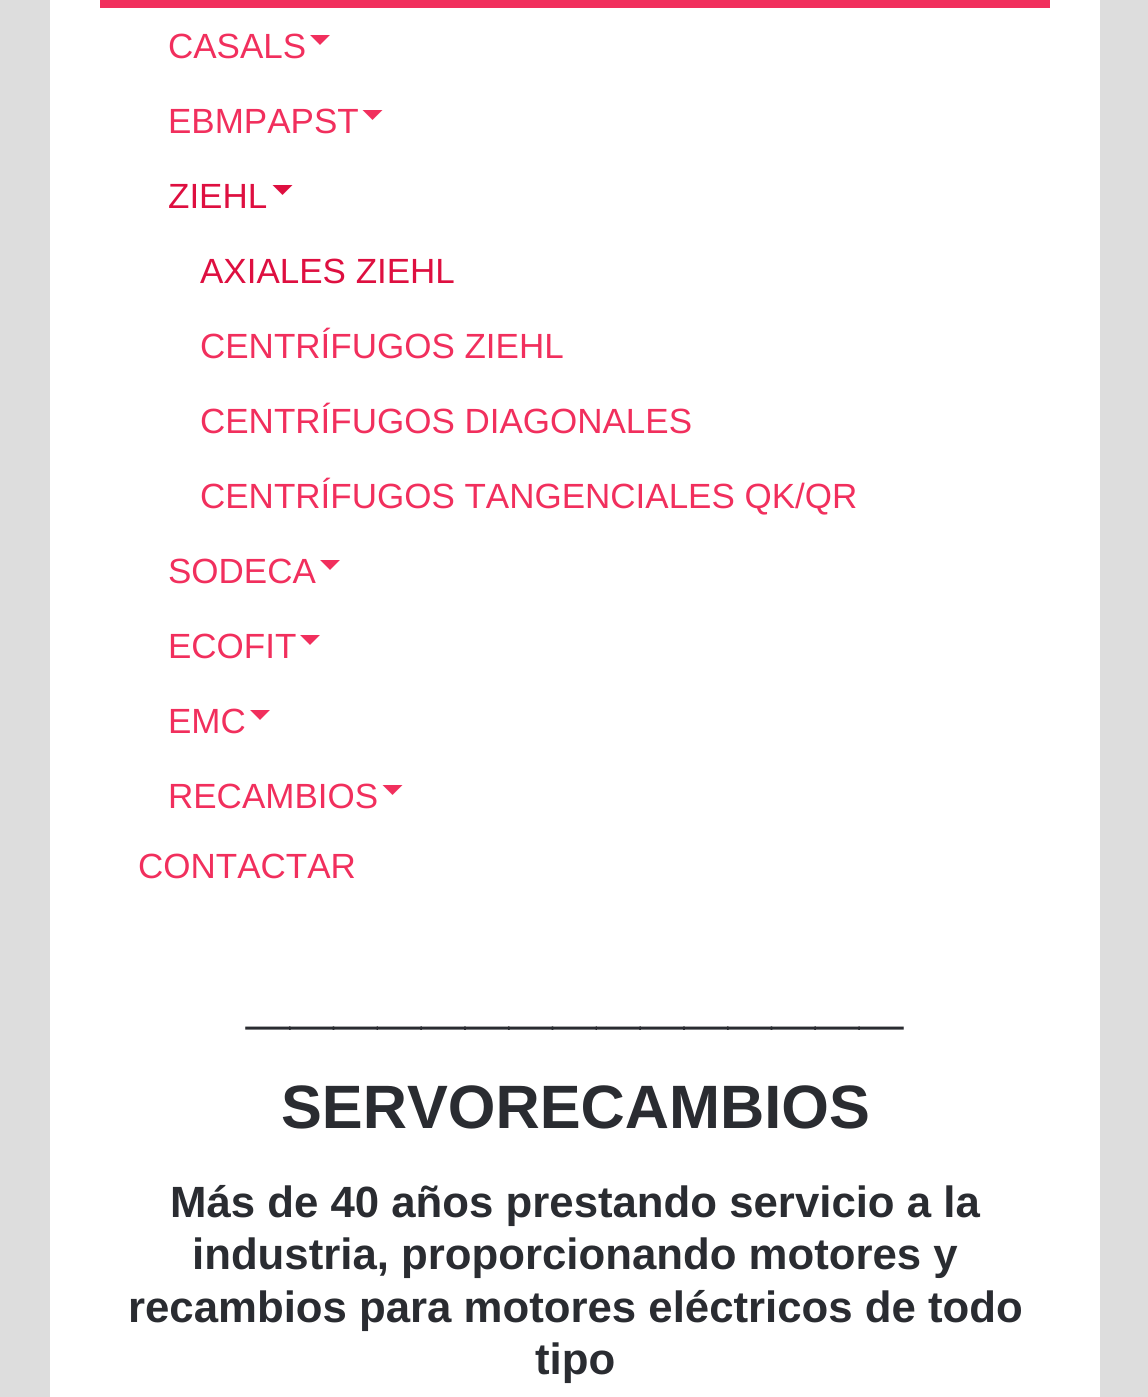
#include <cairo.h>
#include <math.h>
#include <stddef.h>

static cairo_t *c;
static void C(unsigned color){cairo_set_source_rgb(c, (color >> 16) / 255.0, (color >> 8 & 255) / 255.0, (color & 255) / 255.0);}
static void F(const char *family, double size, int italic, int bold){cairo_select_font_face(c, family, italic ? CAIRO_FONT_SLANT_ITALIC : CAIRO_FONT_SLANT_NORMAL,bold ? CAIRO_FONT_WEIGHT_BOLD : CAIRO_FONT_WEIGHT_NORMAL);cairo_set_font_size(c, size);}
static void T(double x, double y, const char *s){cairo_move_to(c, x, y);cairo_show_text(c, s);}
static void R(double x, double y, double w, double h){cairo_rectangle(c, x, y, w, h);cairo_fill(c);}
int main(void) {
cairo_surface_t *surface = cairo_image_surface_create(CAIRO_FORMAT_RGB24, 1148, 1397);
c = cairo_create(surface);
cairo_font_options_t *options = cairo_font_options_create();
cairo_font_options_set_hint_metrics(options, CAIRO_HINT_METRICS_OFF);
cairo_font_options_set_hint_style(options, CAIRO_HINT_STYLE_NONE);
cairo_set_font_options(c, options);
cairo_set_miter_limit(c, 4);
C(0xdddddd);
cairo_paint(c);
C(0xffffff);
R(50,0,1050,1397);
C(0xf12f5d);
R(100,0,950,8);
F("Liberation Sans",35,0,0);
T(168,58,"CASALS");
cairo_new_path(c);
cairo_move_to(c,310,35);
cairo_line_to(c,330,35);
cairo_line_to(c,320,45);
cairo_close_path(c);
cairo_fill(c);
T(168,133,"EBMPAPST");
cairo_new_path(c);
cairo_move_to(c,362.5,110);
cairo_line_to(c,382.5,110);
cairo_line_to(c,372.5,120);
cairo_close_path(c);
cairo_fill(c);
C(0xde0f40);
T(168,208,"ZIEHL");
cairo_new_path(c);
cairo_move_to(c,272.5,185);
cairo_line_to(c,292.5,185);
cairo_line_to(c,282.5,195);
cairo_close_path(c);
cairo_fill(c);
T(200,283,"AXIALES ZIEHL");
C(0xf12f5d);
T(200,358,"CENTRÍFUGOS ZIEHL");
T(200,433,"CENTRÍFUGOS DIAGONALES");
T(200,508,"CENTRÍFUGOS TANGENCIALES QK/QR");
T(168,583,"SODECA");
cairo_new_path(c);
cairo_move_to(c,320,560);
cairo_line_to(c,340,560);
cairo_line_to(c,330,570);
cairo_close_path(c);
cairo_fill(c);
T(168,658,"ECOFIT");
cairo_new_path(c);
cairo_move_to(c,300,635);
cairo_line_to(c,320,635);
cairo_line_to(c,310,645);
cairo_close_path(c);
cairo_fill(c);
T(168,733,"EMC");
cairo_new_path(c);
cairo_move_to(c,250,710);
cairo_line_to(c,270,710);
cairo_line_to(c,260,720);
cairo_close_path(c);
cairo_fill(c);
T(168,808,"RECAMBIOS");
cairo_new_path(c);
cairo_move_to(c,382.5,785);
cairo_line_to(c,402.5,785);
cairo_line_to(c,392.5,795);
cairo_close_path(c);
cairo_fill(c);
T(138,878,"CONTACTAR");
F("Liberation Sans",78.75,0,1);
C(0x2a2c31);
T(246,1020,"_______________");
F("Liberation Sans",61.25,0,1);
T(281,1128,"SERVORECAMBIOS");
F("Liberation Sans",43.75,0,1);
T(170,1217,"Más de 40 años prestando servicio a la");
T(192,1269,"industria, proporcionando motores y");
T(128,1322,"recambios para motores eléctricos de todo");
T(535,1374,"tipo");
cairo_surface_write_to_png(surface, "o.png");
cairo_font_options_destroy(options);
cairo_destroy(c);
cairo_surface_destroy(surface);
return 0;
}
